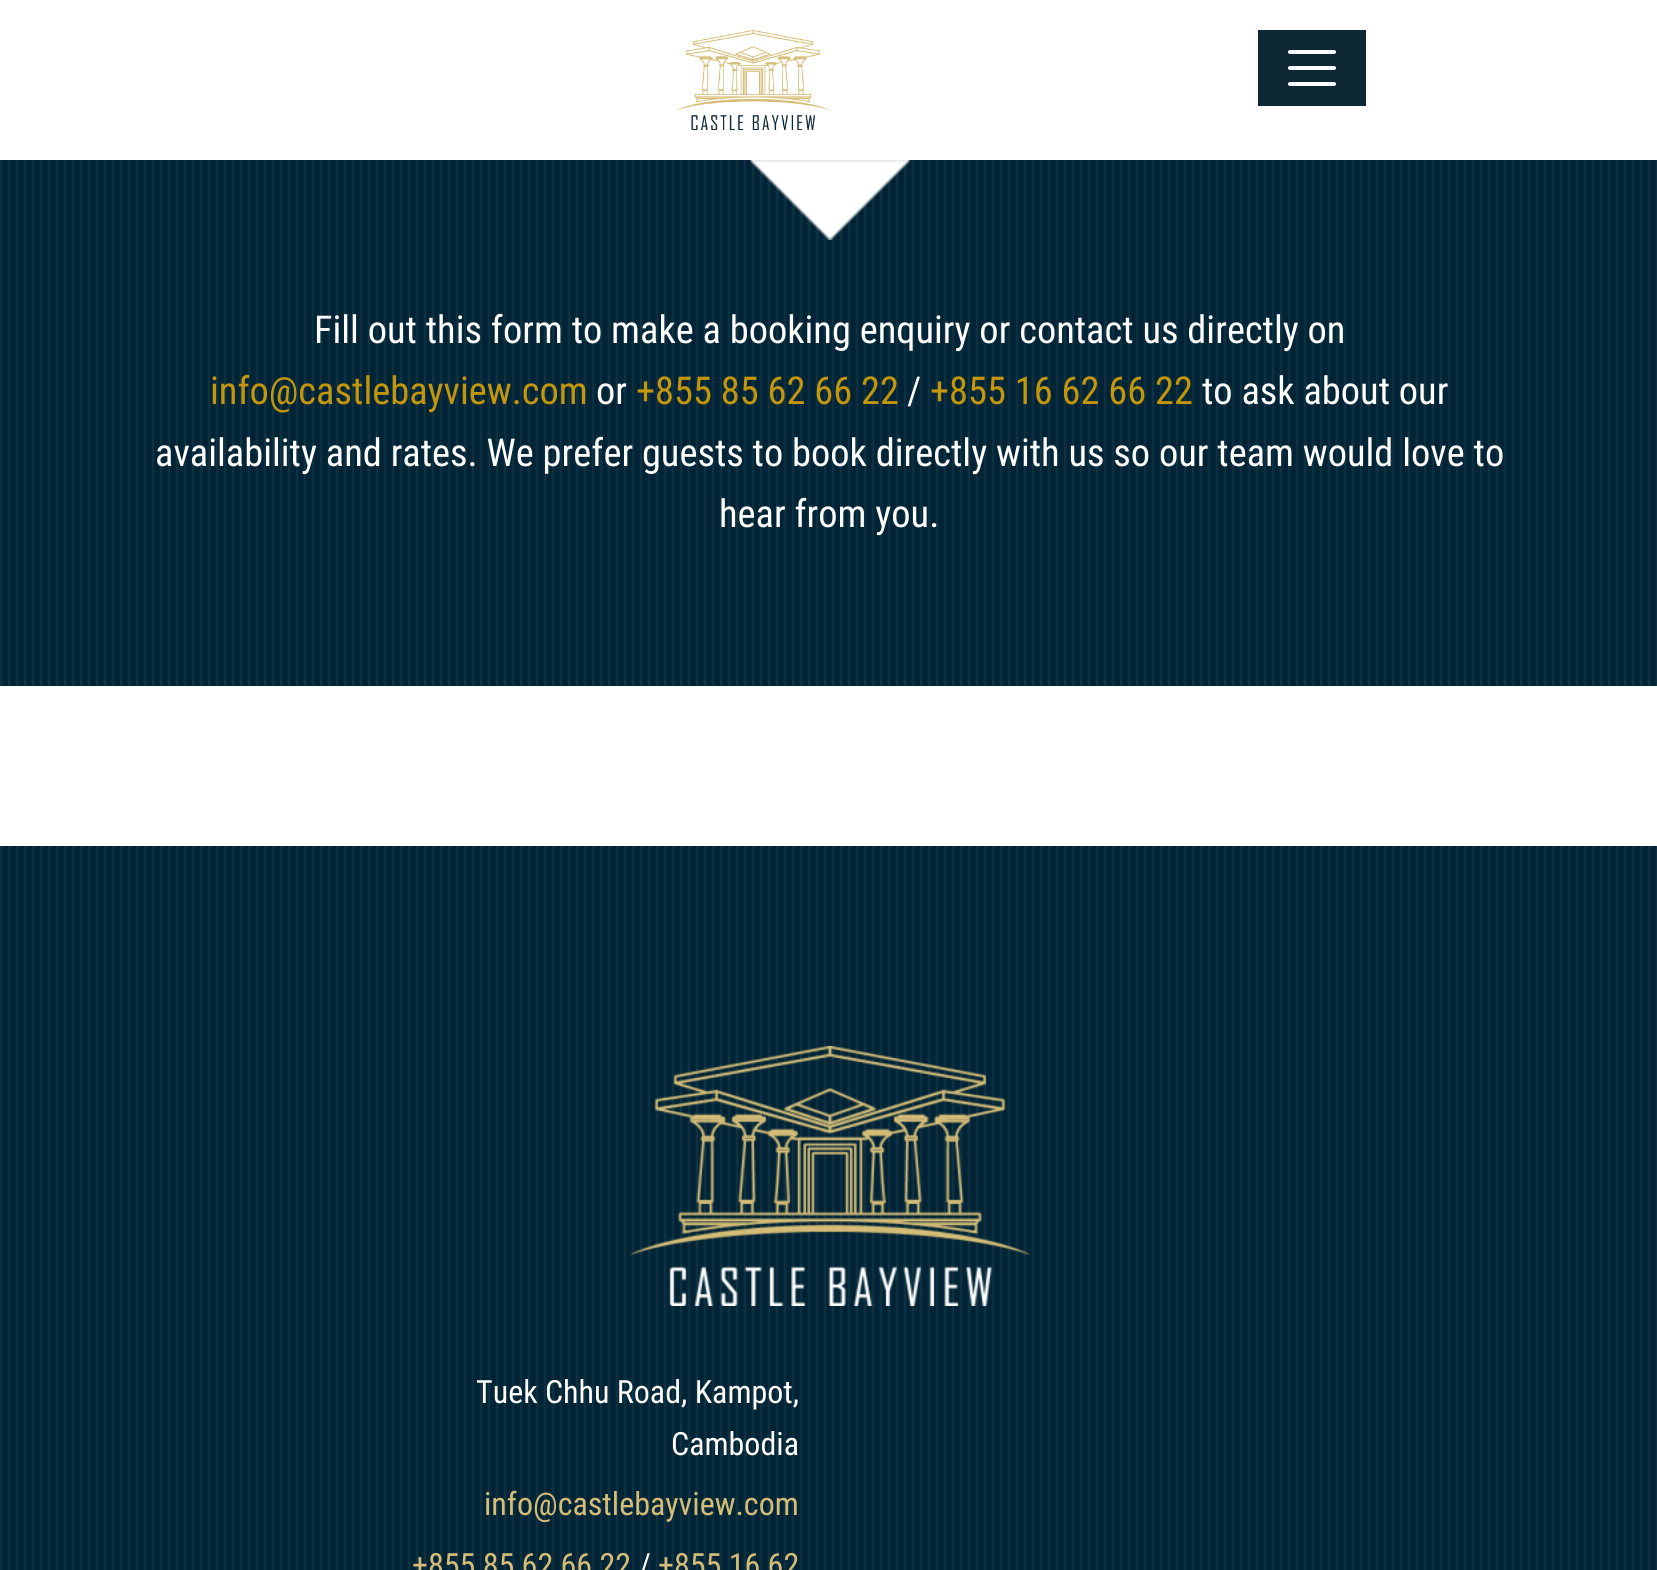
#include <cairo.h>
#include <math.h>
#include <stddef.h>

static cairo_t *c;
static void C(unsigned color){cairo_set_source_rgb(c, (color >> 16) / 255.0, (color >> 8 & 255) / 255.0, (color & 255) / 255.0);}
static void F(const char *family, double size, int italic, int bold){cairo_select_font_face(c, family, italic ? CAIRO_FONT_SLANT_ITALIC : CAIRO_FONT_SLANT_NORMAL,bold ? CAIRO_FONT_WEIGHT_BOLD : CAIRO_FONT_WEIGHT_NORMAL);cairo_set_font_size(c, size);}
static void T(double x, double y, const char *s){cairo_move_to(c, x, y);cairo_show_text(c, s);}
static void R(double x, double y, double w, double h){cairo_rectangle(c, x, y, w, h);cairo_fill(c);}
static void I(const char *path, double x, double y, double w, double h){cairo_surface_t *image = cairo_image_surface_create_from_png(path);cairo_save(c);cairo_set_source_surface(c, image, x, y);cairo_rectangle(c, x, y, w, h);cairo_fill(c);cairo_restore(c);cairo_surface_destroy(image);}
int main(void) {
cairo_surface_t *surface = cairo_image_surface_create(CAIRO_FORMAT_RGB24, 1657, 1570);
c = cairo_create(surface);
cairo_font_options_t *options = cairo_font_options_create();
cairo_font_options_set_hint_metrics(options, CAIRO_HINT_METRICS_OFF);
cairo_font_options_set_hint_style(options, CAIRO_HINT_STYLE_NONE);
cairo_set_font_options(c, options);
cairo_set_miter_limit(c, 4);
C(0xffffff);
cairo_paint(c);
I("1.png",676,30,154,100);
C(0x0e2836);
R(1258,30,108,76);
cairo_new_path(c);
cairo_move_to(c,1290,52);
cairo_line_to(c,1334,52);
cairo_move_to(c,1290,68);
cairo_line_to(c,1334,68);
cairo_move_to(c,1290,84);
cairo_line_to(c,1334,84);
C(0xffffff);
cairo_set_line_width(c,4);
cairo_set_line_cap(c,CAIRO_LINE_CAP_ROUND);
cairo_stroke(c);
I("3.png",0,160,1657,526);
I("2.png",750,160,160,80);
F("Roboto Condensed",38.4,0,0);
T(314,343,"Fill out this form to make a booking enquiry or contact us directly on");
C(0xc4960c);
T(210,404,"info@castlebayview.com");
C(0xffffff);
T(596,404,"or");
C(0xc4960c);
T(636,404,"+855 85 62 66 22");
C(0xffffff);
T(907,404,"/");
C(0xc4960c);
T(930,404,"+855 16 62 66 22");
C(0xffffff);
T(1202,404,"to ask about our");
T(155,466,"availability and rates. We prefer guests to book directly with us so our team would love to");
T(719,527,"hear from you.");
I("4.png",0,846,1657,724);
I("5.png",630,1046,400,260);
F("Roboto Condensed",32,0,0);
T(476,1403,"Tuek Chhu Road, Kampot,");
T(671,1455,"Cambodia");
C(0xd5bd77);
T(484,1515,"info@castlebayview.com");
T(412,1576,"+855 85 62 66 22");
C(0xffffff);
T(639,1576,"/");
C(0xd5bd77);
T(658,1576,"+855 16 62");
cairo_surface_write_to_png(surface, "o.png");
cairo_font_options_destroy(options);
cairo_destroy(c);
cairo_surface_destroy(surface);
return 0;
}
